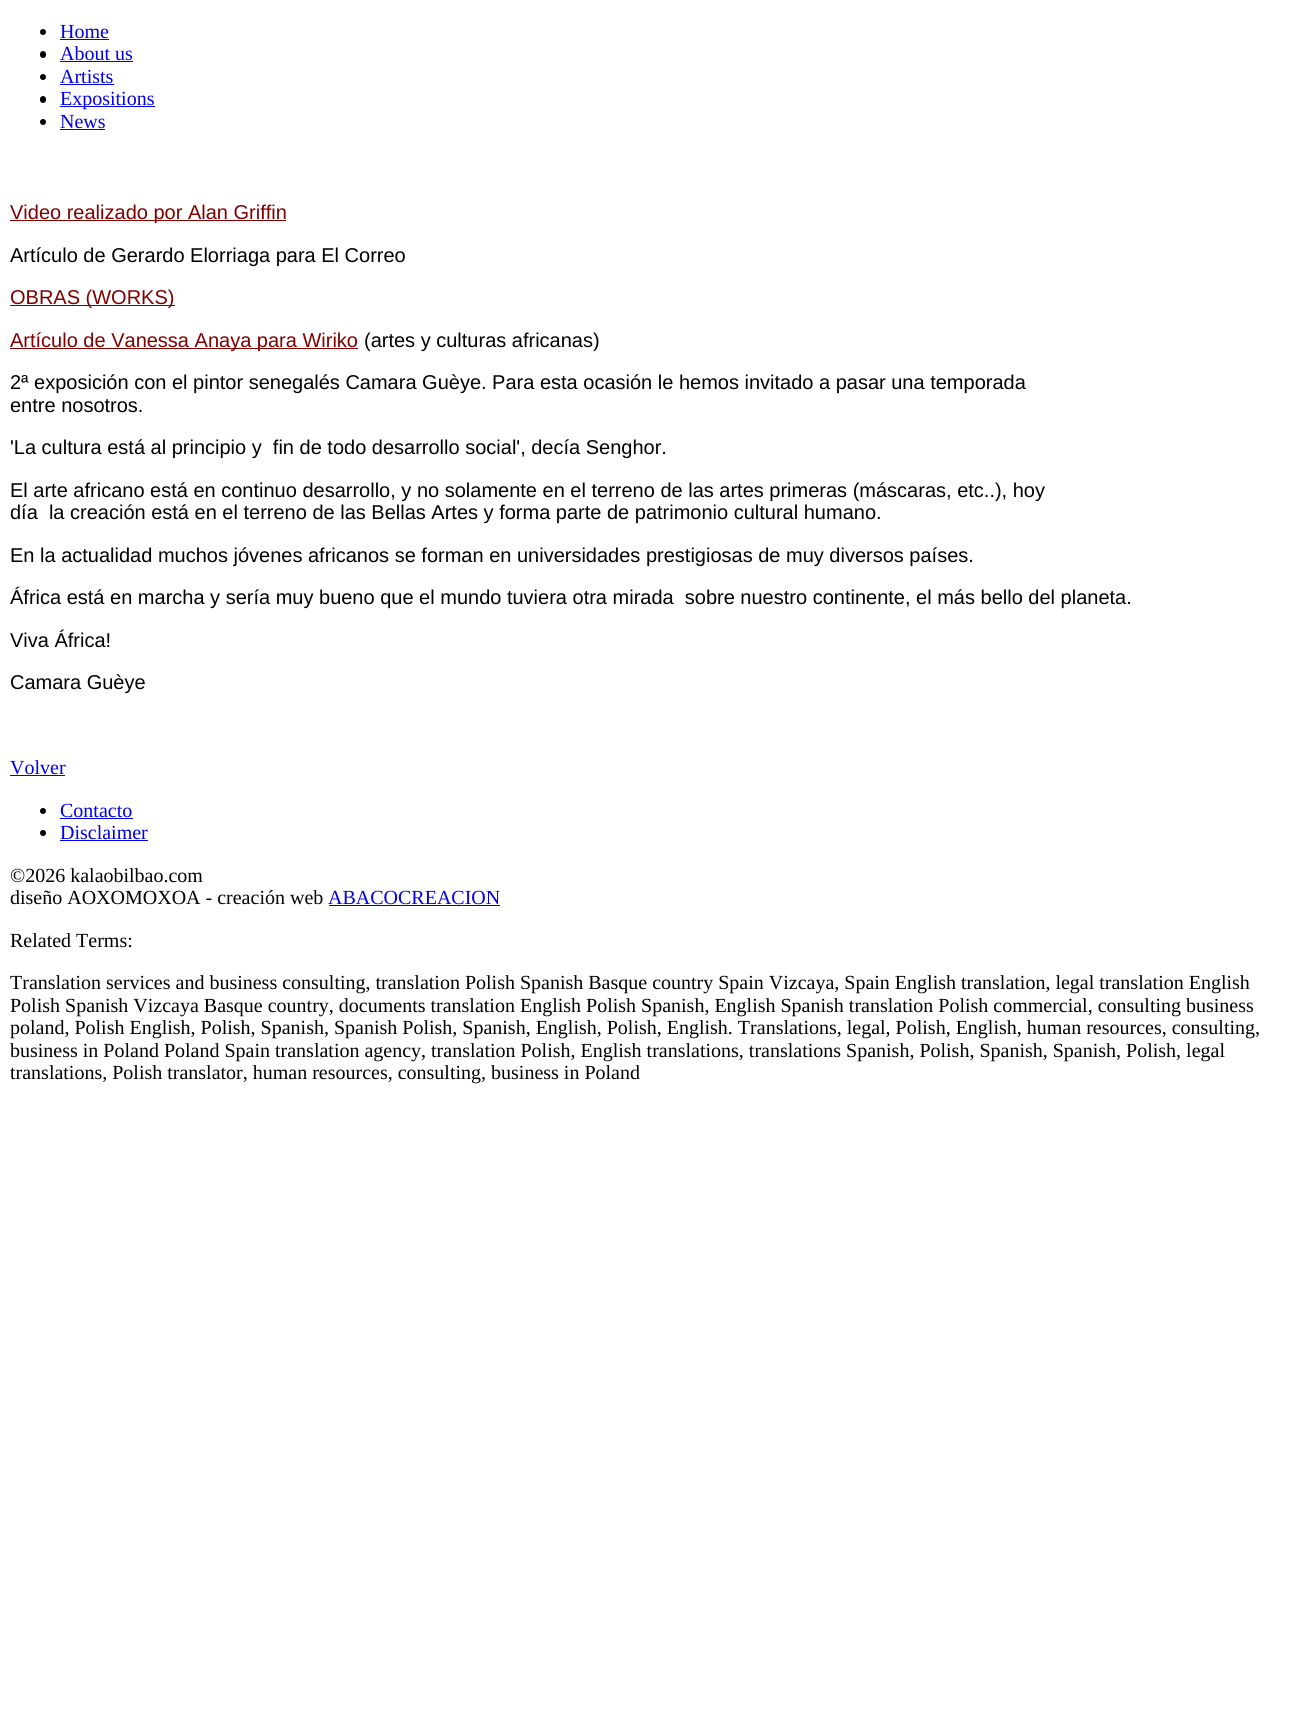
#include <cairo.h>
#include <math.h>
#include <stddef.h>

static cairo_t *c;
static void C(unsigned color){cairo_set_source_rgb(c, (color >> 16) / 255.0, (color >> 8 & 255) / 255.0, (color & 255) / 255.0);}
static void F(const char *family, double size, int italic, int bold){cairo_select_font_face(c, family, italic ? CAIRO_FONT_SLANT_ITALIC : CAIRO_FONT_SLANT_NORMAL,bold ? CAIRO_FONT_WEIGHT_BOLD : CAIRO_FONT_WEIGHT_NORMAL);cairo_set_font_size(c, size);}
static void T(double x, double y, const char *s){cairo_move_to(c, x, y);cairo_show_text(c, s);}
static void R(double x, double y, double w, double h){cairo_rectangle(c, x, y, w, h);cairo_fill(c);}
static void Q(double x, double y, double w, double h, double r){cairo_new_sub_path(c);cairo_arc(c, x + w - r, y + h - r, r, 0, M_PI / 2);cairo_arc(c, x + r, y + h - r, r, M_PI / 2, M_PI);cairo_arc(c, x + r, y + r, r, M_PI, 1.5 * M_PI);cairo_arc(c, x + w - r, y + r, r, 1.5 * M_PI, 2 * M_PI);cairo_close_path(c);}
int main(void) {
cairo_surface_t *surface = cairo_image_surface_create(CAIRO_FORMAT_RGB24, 1292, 1735);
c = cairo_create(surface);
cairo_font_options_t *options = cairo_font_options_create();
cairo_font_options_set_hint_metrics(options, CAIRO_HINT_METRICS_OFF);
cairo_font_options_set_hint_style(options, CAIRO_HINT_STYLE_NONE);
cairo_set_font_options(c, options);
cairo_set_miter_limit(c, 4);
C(0xffffff);
cairo_paint(c);
C(0x000000);
cairo_arc(c,43,32,3,0,2 * M_PI);
cairo_fill(c);
F("Liberation Serif",20,0,0);
C(0x0000ee);
T(60,38,"Home");
R(60,39,49,1);
C(0x000000);
Q(40,51,6,7,3);
cairo_fill(c);
C(0x0000ee);
T(60,60,"About us");
R(60,61,73,1);
C(0x000000);
cairo_new_path(c);
cairo_arc(c,43,77,3,0,2 * M_PI);
cairo_fill(c);
C(0x0000ee);
T(60,83,"Artists");
R(60,84,54,1);
C(0x000000);
Q(40,96,6,7,3);
cairo_fill(c);
C(0x0000ee);
R(60,106,95,1);
T(60,105,"Expositions");
C(0x000000);
cairo_new_path(c);
cairo_arc(c,43,122,3,0,2 * M_PI);
cairo_fill(c);
C(0x0000ee);
T(60,128,"News");
R(60,129,45,1);
C(0x800000);
R(10,220,276,1);
F("Liberation Sans",20,0,0);
T(10,219,"Video realizado por Alan Griffin");
C(0x000000);
T(10,262,"Artículo de Gerardo Elorriaga para El Correo");
C(0x800000);
R(10,305,165,1);
T(10,304,"OBRAS (WORKS)");
R(10,348,348,1);
T(10,347,"Artículo de Vanessa Anaya para Wiriko");
C(0x000000);
T(364,347,"(artes y culturas africanas)");
T(10,389,"2ª exposición con el pintor senegalés Camara Guèye. Para esta ocasión le hemos invitado a pasar una temporada");
T(10,412,"entre nosotros.");
T(10,454,"'La cultura está al principio y  fin de todo desarrollo social', decía Senghor.");
T(10,497,"El arte africano está en continuo desarrollo, y no solamente en el terreno de las artes primeras (máscaras, etc..), hoy");
T(10,519,"día  la creación está en el terreno de las Bellas Artes y forma parte de patrimonio cultural humano.");
T(10,562,"En la actualidad muchos jóvenes africanos se forman en universidades prestigiosas de muy diversos países.");
T(10,604,"África está en marcha y sería muy bueno que el mundo tuviera otra mirada  sobre nuestro continente, el más bello del planeta.");
T(10,647,"Viva África!");
T(10,689,"Camara Guèye");
F("Liberation Serif",20,0,0);
C(0x0000ee);
T(10,774,"Volver");
R(10,775,55,1);
C(0x000000);
cairo_new_path(c);
cairo_arc(c,43,811,3,0,2 * M_PI);
cairo_fill(c);
C(0x0000ee);
T(60,817,"Contacto");
R(60,818,73,1);
C(0x000000);
cairo_new_path(c);
cairo_arc(c,43,833,3,0,2 * M_PI);
cairo_fill(c);
C(0x0000ee);
T(60,839,"Disclaimer");
R(60,840,88,1);
C(0x000000);
T(10,882,"©2026 kalaobilbao.com");
T(10,904,"diseño AOXOMOXOA - creación web");
C(0x0000ee);
T(328,904,"ABACOCREACION");
R(329,905,171,1);
C(0x000000);
T(10,947,"Related Terms:");
T(10,989,"Translation services and business consulting, translation Polish Spanish Basque country Spain Vizcaya, Spain English translation, legal translation English");
T(10,1012,"Polish Spanish Vizcaya Basque country, documents translation English Polish Spanish, English Spanish translation Polish commercial, consulting business");
T(10,1034,"poland, Polish English, Polish, Spanish, Spanish Polish, Spanish, English, Polish, English. Translations, legal, Polish, English, human resources, consulting,");
T(10,1057,"business in Poland Poland Spain translation agency, translation Polish, English translations, translations Spanish, Polish, Spanish, Spanish, Polish, legal");
T(10,1079,"translations, Polish translator, human resources, consulting, business in Poland");
cairo_surface_write_to_png(surface, "o.png");
cairo_font_options_destroy(options);
cairo_destroy(c);
cairo_surface_destroy(surface);
return 0;
}
